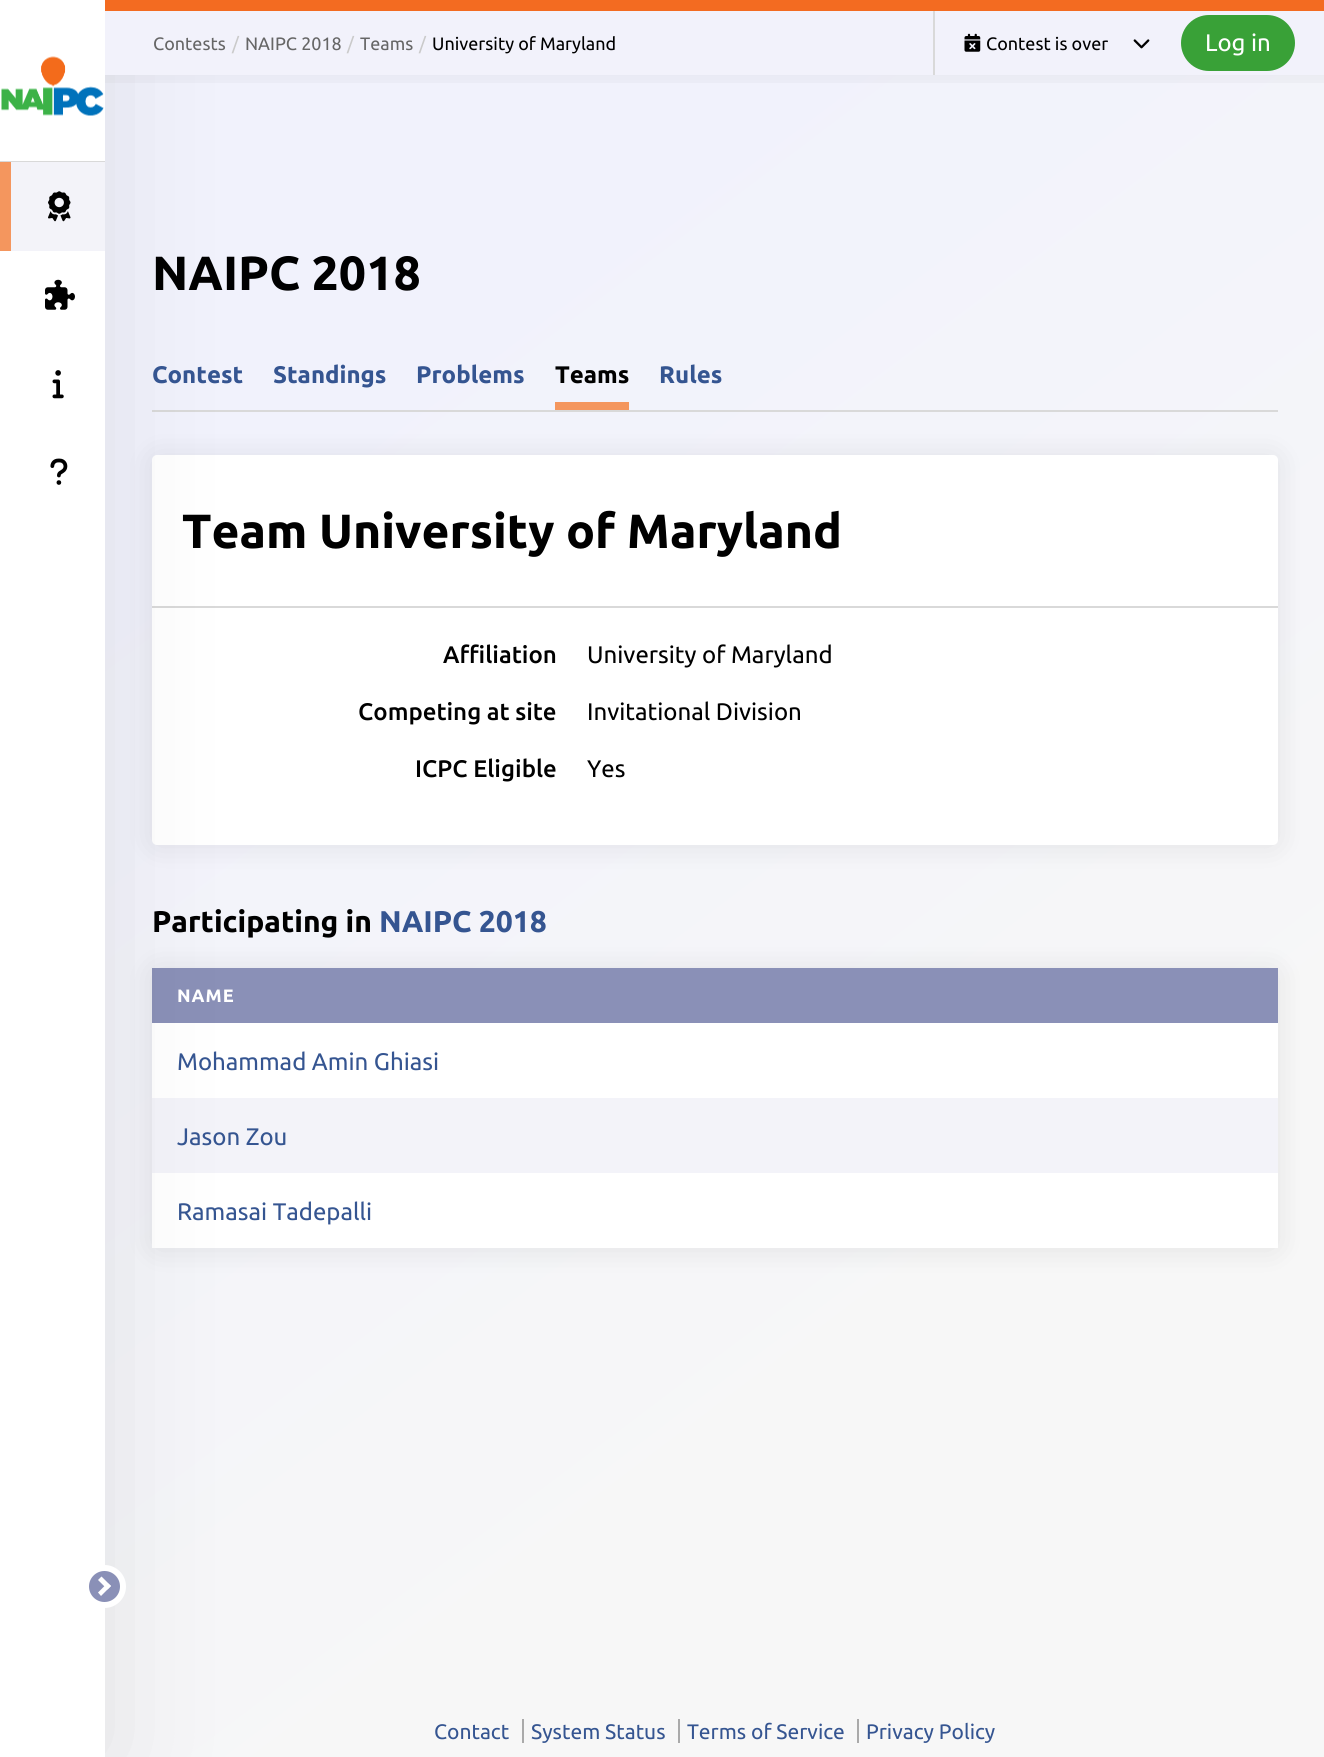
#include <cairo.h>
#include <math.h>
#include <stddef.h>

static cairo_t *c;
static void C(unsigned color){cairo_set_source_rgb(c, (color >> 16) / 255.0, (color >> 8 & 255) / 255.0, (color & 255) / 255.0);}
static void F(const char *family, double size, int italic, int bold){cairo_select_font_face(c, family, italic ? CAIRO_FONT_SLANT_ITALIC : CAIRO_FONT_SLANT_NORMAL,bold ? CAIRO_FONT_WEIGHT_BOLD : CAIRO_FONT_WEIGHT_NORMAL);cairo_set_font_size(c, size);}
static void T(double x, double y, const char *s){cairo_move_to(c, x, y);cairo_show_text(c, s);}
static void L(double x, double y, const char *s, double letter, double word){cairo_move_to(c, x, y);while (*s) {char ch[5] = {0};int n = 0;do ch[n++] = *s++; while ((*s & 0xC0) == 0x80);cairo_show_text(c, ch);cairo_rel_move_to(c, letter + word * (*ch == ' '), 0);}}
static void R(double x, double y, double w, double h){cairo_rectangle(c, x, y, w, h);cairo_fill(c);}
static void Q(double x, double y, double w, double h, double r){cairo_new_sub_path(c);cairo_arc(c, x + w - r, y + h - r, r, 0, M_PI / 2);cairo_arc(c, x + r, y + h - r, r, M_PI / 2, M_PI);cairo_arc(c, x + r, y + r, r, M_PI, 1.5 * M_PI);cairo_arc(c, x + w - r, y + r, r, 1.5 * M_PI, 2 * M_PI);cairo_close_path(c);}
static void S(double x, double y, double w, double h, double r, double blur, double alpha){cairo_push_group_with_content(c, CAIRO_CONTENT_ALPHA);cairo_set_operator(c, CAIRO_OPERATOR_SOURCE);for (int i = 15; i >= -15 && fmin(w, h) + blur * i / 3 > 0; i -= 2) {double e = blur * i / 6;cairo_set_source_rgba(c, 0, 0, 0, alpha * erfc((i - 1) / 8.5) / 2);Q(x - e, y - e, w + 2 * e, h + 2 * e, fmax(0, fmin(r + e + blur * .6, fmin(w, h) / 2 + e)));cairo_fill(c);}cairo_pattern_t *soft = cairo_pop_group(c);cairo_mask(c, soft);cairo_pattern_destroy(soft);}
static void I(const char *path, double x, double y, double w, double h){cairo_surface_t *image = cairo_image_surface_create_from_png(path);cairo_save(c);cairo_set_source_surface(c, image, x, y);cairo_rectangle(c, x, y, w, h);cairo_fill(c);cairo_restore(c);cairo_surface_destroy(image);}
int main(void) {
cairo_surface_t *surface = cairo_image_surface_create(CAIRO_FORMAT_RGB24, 1324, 1757);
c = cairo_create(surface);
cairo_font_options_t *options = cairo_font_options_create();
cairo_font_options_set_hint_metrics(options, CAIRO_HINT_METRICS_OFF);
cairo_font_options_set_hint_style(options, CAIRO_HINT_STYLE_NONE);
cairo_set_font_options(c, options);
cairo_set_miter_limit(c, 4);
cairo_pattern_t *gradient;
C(0xffffff);
cairo_paint(c);
gradient = cairo_pattern_create_linear(-.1,.1,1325,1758);
cairo_pattern_add_color_stop_rgba(gradient,.22,0.945,0.949,0.988,1);
cairo_pattern_add_color_stop_rgba(gradient,.75,0.969,0.969,0.969,1);
cairo_set_source(c,gradient);
cairo_pattern_destroy(gradient);
R(105,75,1219,1682);
C(0xd9d9d9);
R(152,410,1126,2);
C(0x000000);
S(152,456,1126,390,5,15,.08);
C(0xffffff);
Q(152,455,1126,390,5);
cairo_fill(c);
C(0xd9d9d9);
R(152,606,1126,2);
C(0x000000);
S(152,969,1126,281,5,15,.08);
C(0xffffff);
R(152,1023,1126,75);
C(0x8a90b7);
R(152,968,1126,55);
C(0xf3f3f9);
R(152,1098,1126,75);
C(0xffffff);
R(152,1173,1126,75);
C(0x000000);
S(0,3,105,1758,0,60,.09);
C(0xffffff);
R(0,0,105,1757);
C(0xd9d9d9);
R(0,161,105,1);
I("1.png",1,56,103,60);
C(0xf3f3f9);
R(11,162,94,89);
C(0xf4965e);
R(0,162,11,89);
I("2.png",48,191,23,31);
I("3.png",45,279,30,31);
I("4.png",52,370,12,29);
I("5.png",50,458,18,27);
C(0x8a90b7);
cairo_arc(c,104.5,1586.5,18.5,0,2 * M_PI);
cairo_fill_preserve(c);
C(0xffffff);
cairo_set_line_width(c,6);
cairo_stroke(c);
cairo_new_path(c);
cairo_move_to(c,98,1580);
cairo_line_to(c,101.5,1576.5);
cairo_line_to(c,111,1586);
cairo_line_to(c,107.5,1589.5);
cairo_close_path(c);
cairo_fill(c);
cairo_new_path(c);
cairo_move_to(c,98,1592.5);
cairo_line_to(c,107.5,1583);
cairo_line_to(c,111,1586);
cairo_line_to(c,101,1596);
cairo_close_path(c);
cairo_fill(c);
C(0xf2f2fb);
R(105,11,1219,64);
C(0xf36b21);
R(105,0,1219,11);
F("Ubuntu",18,0,0);
C(0x666666);
T(153,50,"Contests");
C(0xcacaca);
T(232,50,"/");
C(0x666666);
T(245,50,"NAIPC 2018");
C(0xcacaca);
T(347,50,"/");
C(0x666666);
T(360,50,"Teams");
C(0xcacaca);
T(419,50,"/");
C(0x000000);
T(432,50,"University of Maryland");
C(0xd9d9d9);
R(933,11,2,64);
I("6.png",964,33,17,19);
C(0x000000);
T(986,50,"Contest is over");
I("7.png",1133,39,17,10);
C(0x39a137);
Q(1181,15,114,56,28);
cairo_fill(c);
F("Ubuntu",24,0,0);
C(0xffffff);
T(1205,51,"Log in");
gradient = cairo_pattern_create_linear(715,75,715,105);
cairo_pattern_add_color_stop_rgba(gradient,0,0,0,0,.03);
cairo_pattern_add_color_stop_rgba(gradient,1,0,0,0,0);
cairo_set_source(c,gradient);
cairo_pattern_destroy(gradient);
R(105,75,1219,8);
F("Ubuntu",48,0,1);
C(0x000000);
T(152,290,"NAIPC 2018");
F("Ubuntu",24,0,1);
C(0x355591);
T(152,383,"Contest");
T(273,383,"Standings");
T(416,383,"Problems");
C(0xf4965e);
R(555,402,74,8);
C(0x000000);
T(555,383,"Teams");
C(0x355591);
T(659,383,"Rules");
F("Ubuntu",48,0,1);
C(0x000000);
T(182,548,"Team University of Maryland");
F("Ubuntu Medium",24,0,0);
T(443,663,"Affiliation");
F("Ubuntu",24,0,0);
T(587,663,"University of Maryland");
F("Ubuntu Medium",24,0,0);
T(358,720,"Competing at site");
F("Ubuntu",24,0,0);
T(587,720,"Invitational Division");
F("Ubuntu Medium",24,0,0);
T(415,777,"ICPC Eligible");
F("Ubuntu",24,0,0);
T(587,777,"Yes");
F("Ubuntu",30,0,1);
T(152,932,"Participating in");
C(0x355591);
T(379,932,"NAIPC 2018");
F("Ubuntu",18,0,1);
C(0xffffff);
L(177,1002,"NAME",1,0);
F("Ubuntu",24,0,0);
C(0x355591);
T(177,1070,"Mohammad Amin Ghiasi");
T(177,1145,"Jason Zou");
T(177,1220,"Ramasai Tadepalli");
F("Ubuntu",21,0,0);
T(434,1739,"Contact");
T(531,1739,"System Status");
C(0xaaaaaa);
R(522,1719,2,24);
C(0x355591);
T(687,1739,"Terms of Service");
C(0xaaaaaa);
R(678,1719,2,24);
C(0x355591);
T(866,1739,"Privacy Policy");
C(0xaaaaaa);
R(857,1719,2,24);
cairo_surface_write_to_png(surface, "o.png");
cairo_font_options_destroy(options);
cairo_destroy(c);
cairo_surface_destroy(surface);
return 0;
}
